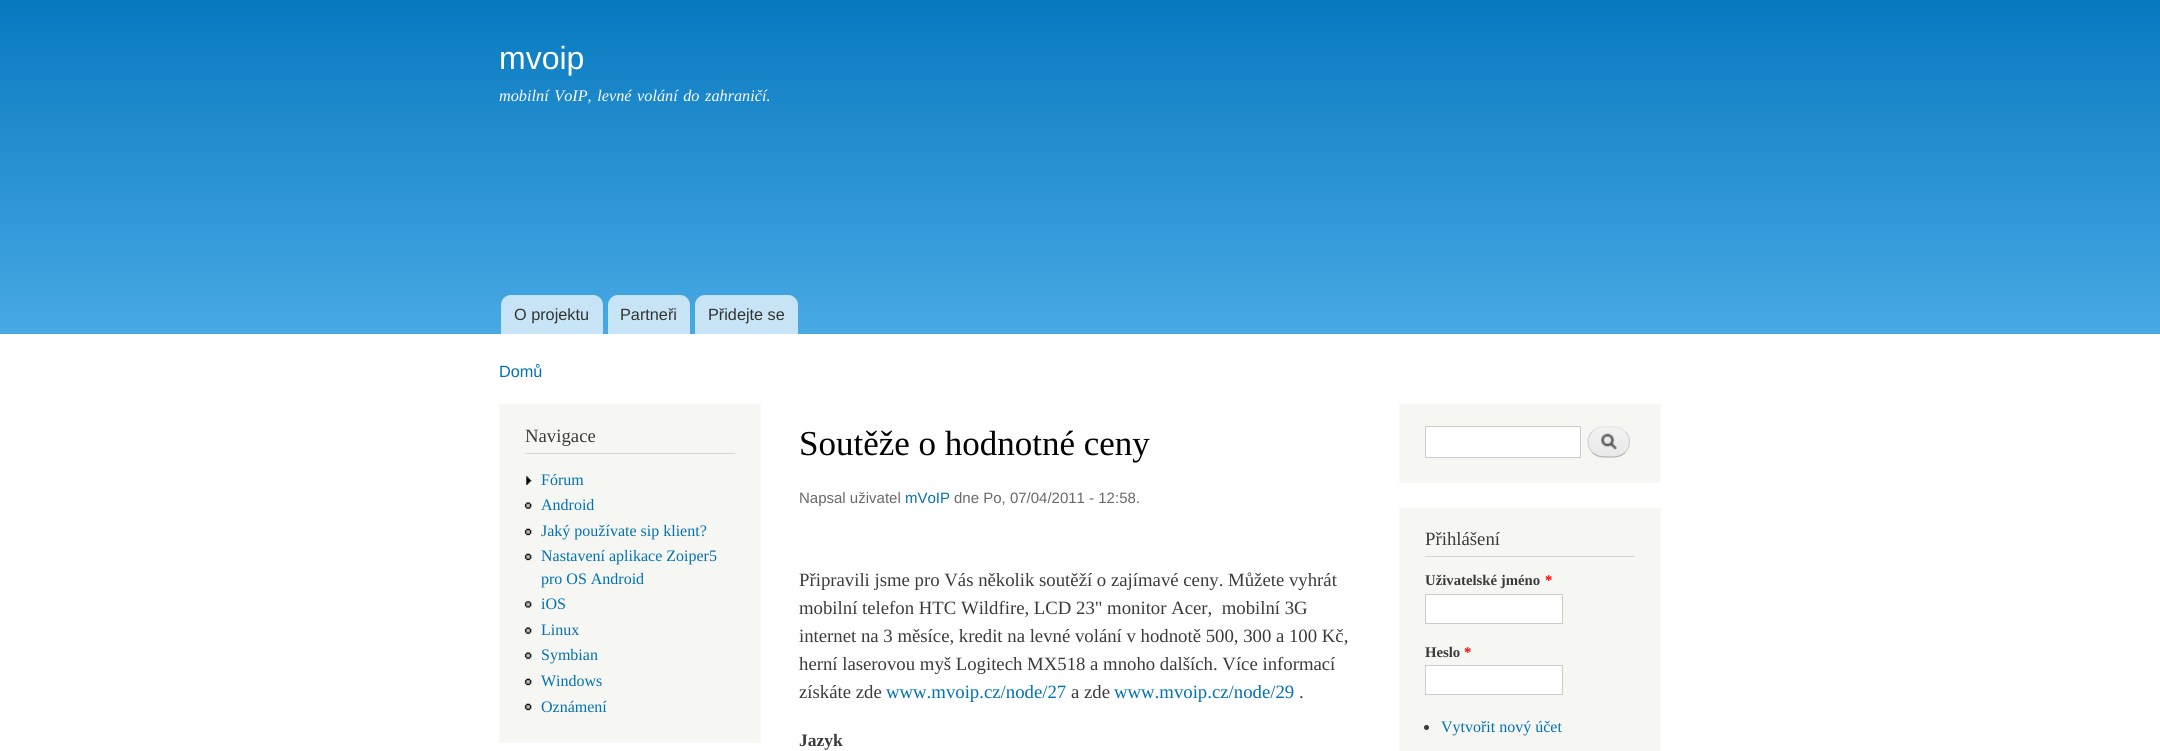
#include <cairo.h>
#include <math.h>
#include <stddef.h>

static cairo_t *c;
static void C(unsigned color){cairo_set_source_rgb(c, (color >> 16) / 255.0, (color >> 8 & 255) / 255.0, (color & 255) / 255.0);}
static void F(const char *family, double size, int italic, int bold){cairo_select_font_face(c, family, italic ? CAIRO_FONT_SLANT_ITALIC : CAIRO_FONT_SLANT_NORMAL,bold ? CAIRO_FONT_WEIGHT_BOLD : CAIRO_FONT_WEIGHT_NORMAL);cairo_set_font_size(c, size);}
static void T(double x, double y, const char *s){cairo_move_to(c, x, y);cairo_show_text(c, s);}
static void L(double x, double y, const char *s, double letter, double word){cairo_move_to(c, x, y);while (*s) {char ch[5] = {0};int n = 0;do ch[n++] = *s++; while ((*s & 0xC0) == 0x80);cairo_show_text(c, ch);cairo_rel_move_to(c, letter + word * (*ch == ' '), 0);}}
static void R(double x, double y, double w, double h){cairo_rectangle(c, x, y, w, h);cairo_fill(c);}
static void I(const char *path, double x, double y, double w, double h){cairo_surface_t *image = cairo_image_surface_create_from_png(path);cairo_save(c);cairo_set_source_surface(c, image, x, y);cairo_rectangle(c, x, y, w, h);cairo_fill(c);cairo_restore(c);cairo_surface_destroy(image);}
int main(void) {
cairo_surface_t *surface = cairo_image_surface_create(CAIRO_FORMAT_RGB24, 2160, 751);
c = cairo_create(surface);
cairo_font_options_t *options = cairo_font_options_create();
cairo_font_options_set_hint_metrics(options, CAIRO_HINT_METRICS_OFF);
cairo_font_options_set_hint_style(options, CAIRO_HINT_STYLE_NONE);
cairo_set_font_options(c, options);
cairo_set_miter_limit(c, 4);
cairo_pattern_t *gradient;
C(0xffffff);
cairo_paint(c);
gradient = cairo_pattern_create_linear(1080,0,1080,334);
cairo_pattern_add_color_stop_rgba(gradient,0,0.027,0.475,0.749,1);
cairo_pattern_add_color_stop_rgba(gradient,1,0.282,0.663,0.894,1);
cairo_set_source(c,gradient);
cairo_pattern_destroy(gradient);
R(0,0,2160,334);
F("Liberation Sans",32,0,0);
C(0xfffeff);
T(499,69,"mvoip");
F("Liberation Serif",16.25,1,0);
L(499,101,"mobilní VoIP, levné volání do zahraničí.",0,1.5);
cairo_set_source_rgba(c,1,1,1,0.7);
cairo_new_path(c);
cairo_move_to(c,511,295);
cairo_line_to(c,593,295);
cairo_curve_to(c,598.5,295,603,299.5,603,305);
cairo_line_to(c,603,334);
cairo_line_to(c,501,334);
cairo_line_to(c,501,305);
cairo_curve_to(c,501,299.5,505.5,295,511,295);
cairo_close_path(c);
cairo_fill(c);
F("Liberation Sans",16.25,0,0);
C(0x333333);
T(514,320,"O projektu");
cairo_set_source_rgba(c,1,1,1,0.7);
cairo_new_path(c);
cairo_move_to(c,618,295);
cairo_line_to(c,680,295);
cairo_curve_to(c,685.5,295,690,299.5,690,305);
cairo_line_to(c,690,334);
cairo_line_to(c,608,334);
cairo_line_to(c,608,305);
cairo_curve_to(c,608,299.5,612.5,295,618,295);
cairo_close_path(c);
cairo_fill(c);
C(0x333333);
T(620,320,"Partneři");
cairo_set_source_rgba(c,1,1,1,0.7);
cairo_new_path(c);
cairo_move_to(c,705,295);
cairo_line_to(c,788,295);
cairo_curve_to(c,793.5,295,798,299.5,798,305);
cairo_line_to(c,798,334);
cairo_line_to(c,695,334);
cairo_line_to(c,695,305);
cairo_curve_to(c,695,299.5,699.5,295,705,295);
cairo_close_path(c);
cairo_fill(c);
C(0x333333);
T(708,320,"Přidejte se");
C(0x0071b3);
T(499,377,"Domů");
C(0xf6f6f2);
cairo_rectangle(c,499.5,404.5,261,338);
cairo_fill_preserve(c);
C(0xf9f9f9);
cairo_set_line_width(c,1);
cairo_stroke(c);
C(0xd6d6d6);
R(525,453,210,1);
F("Liberation Serif",18.75,0,0);
C(0x3b3b3b);
T(525,442,"Navigace");
I("1.png",526,476,6,9);
F("Liberation Serif",16,0,0);
C(0x0071b3);
T(541,485,"Fórum");
I("2.png",524,502,8,7);
T(541,510,"Android");
I("3.png",524,528,8,8);
T(541,536,"Jaký používate sip klient?");
I("3.png",524,553,8,8);
T(541,561,"Nastavení aplikace Zoiper5");
T(541,584,"pro OS Android");
I("4.png",524,601,8,7);
T(541,609,"iOS");
I("2.png",524,627,8,7);
T(541,635,"Linux");
I("2.png",524,652,8,7);
T(541,660,"Symbian");
I("3.png",524,678,8,8);
T(541,686,"Windows");
I("3.png",524,703,8,8);
T(541,712,"Oznámení");
F("Liberation Serif",35,0,0);
C(0x000000);
T(799,455,"Soutěže o hodnotné ceny");
F("Liberation Sans",15,0,0);
C(0x68696b);
T(799,503,"Napsal uživatel");
C(0x0071b3);
T(905,503,"mVoIP");
C(0x68696b);
T(954,503,"dne Po, 07/04/2011 - 12:58.");
F("Liberation Serif",18.75,0,0);
C(0x3b3b3b);
T(799,586,"Připravili jsme pro Vás několik soutěží o zajímavé ceny. Můžete vyhrát");
T(799,614,"mobilní telefon HTC Wildfire, LCD 23\" monitor Acer,  mobilní 3G");
T(799,642,"internet na 3 měsíce, kredit na levné volání v hodnotě 500, 300 a 100 Kč,");
T(799,670,"herní laserovou myš Logitech MX518 a mnoho dalších. Více informací");
T(799,698,"získáte zde");
C(0x0071b3);
T(886,698,"www.mvoip.cz/node/27");
C(0x3b3b3b);
T(1071,698,"a zde");
C(0x0071b3);
T(1114,698,"www.mvoip.cz/node/29");
C(0x3b3b3b);
T(1299,698,".");
F("Liberation Serif",17.5,0,1);
T(799,746,"Jazyk");
C(0xf6f6f2);
cairo_rectangle(c,1399.5,404.5,261,78);
cairo_fill_preserve(c);
C(0xf9f9f9);
cairo_stroke(c);
C(0xffffff);
cairo_rectangle(c,1425.5,426.5,155,31);
cairo_fill_preserve(c);
C(0xcccccc);
cairo_stroke(c);
I("5.png",1588,429,42,28);
cairo_new_path(c);
cairo_move_to(c,1592.5,431.5);
cairo_curve_to(c,1597,426.5,1602.5,427,1609,427);
cairo_curve_to(c,1615,427,1620.5,426.5,1625,431.5);
C(0xe4e4e4);
cairo_set_line_width(c,1.2);
cairo_stroke(c);
cairo_new_path(c);
cairo_move_to(c,1625,431.5);
cairo_curve_to(c,1631,437,1631,446.5,1625,452.5);
C(0xd2d2d2);
cairo_stroke(c);
cairo_new_path(c);
cairo_move_to(c,1625,452.5);
cairo_curve_to(c,1620.5,457,1615,457,1609,457);
cairo_curve_to(c,1602.5,457,1597,457,1592.5,452.5);
C(0xb4b4b4);
cairo_stroke(c);
cairo_new_path(c);
cairo_move_to(c,1592.5,452.5);
cairo_curve_to(c,1586.5,446.5,1586.5,437,1592.5,431.5);
C(0xd2d2d2);
cairo_stroke(c);
C(0xf6f6f2);
cairo_rectangle(c,1399.5,508.5,261,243);
cairo_fill_preserve(c);
C(0xf9f9f9);
cairo_set_line_width(c,1);
cairo_stroke(c);
C(0xd6d6d6);
R(1425,556,210,1);
F("Liberation Serif",18.75,0,0);
C(0x3b3b3b);
T(1425,545,"Přihlášení");
F("Liberation Serif",14.75,0,1);
T(1425,585,"Uživatelské jméno");
C(0xff0000);
T(1545,585,"*");
C(0xffffff);
cairo_rectangle(c,1425.5,594.5,137,29);
cairo_fill_preserve(c);
C(0xcccccc);
cairo_stroke(c);
C(0x3b3b3b);
T(1425,657,"Heslo");
C(0xff0000);
T(1464,657,"*");
C(0xffffff);
cairo_rectangle(c,1425.5,665.5,137,29);
cairo_fill_preserve(c);
C(0xcccccc);
cairo_stroke(c);
C(0x3b3b3b);
cairo_arc(c,1426.5,727.5,2.5,0,2 * M_PI);
cairo_fill(c);
F("Liberation Serif",16,0,0);
C(0x0071b3);
T(1441,732,"Vytvořit nový účet");
cairo_surface_write_to_png(surface, "o.png");
cairo_font_options_destroy(options);
cairo_destroy(c);
cairo_surface_destroy(surface);
return 0;
}
